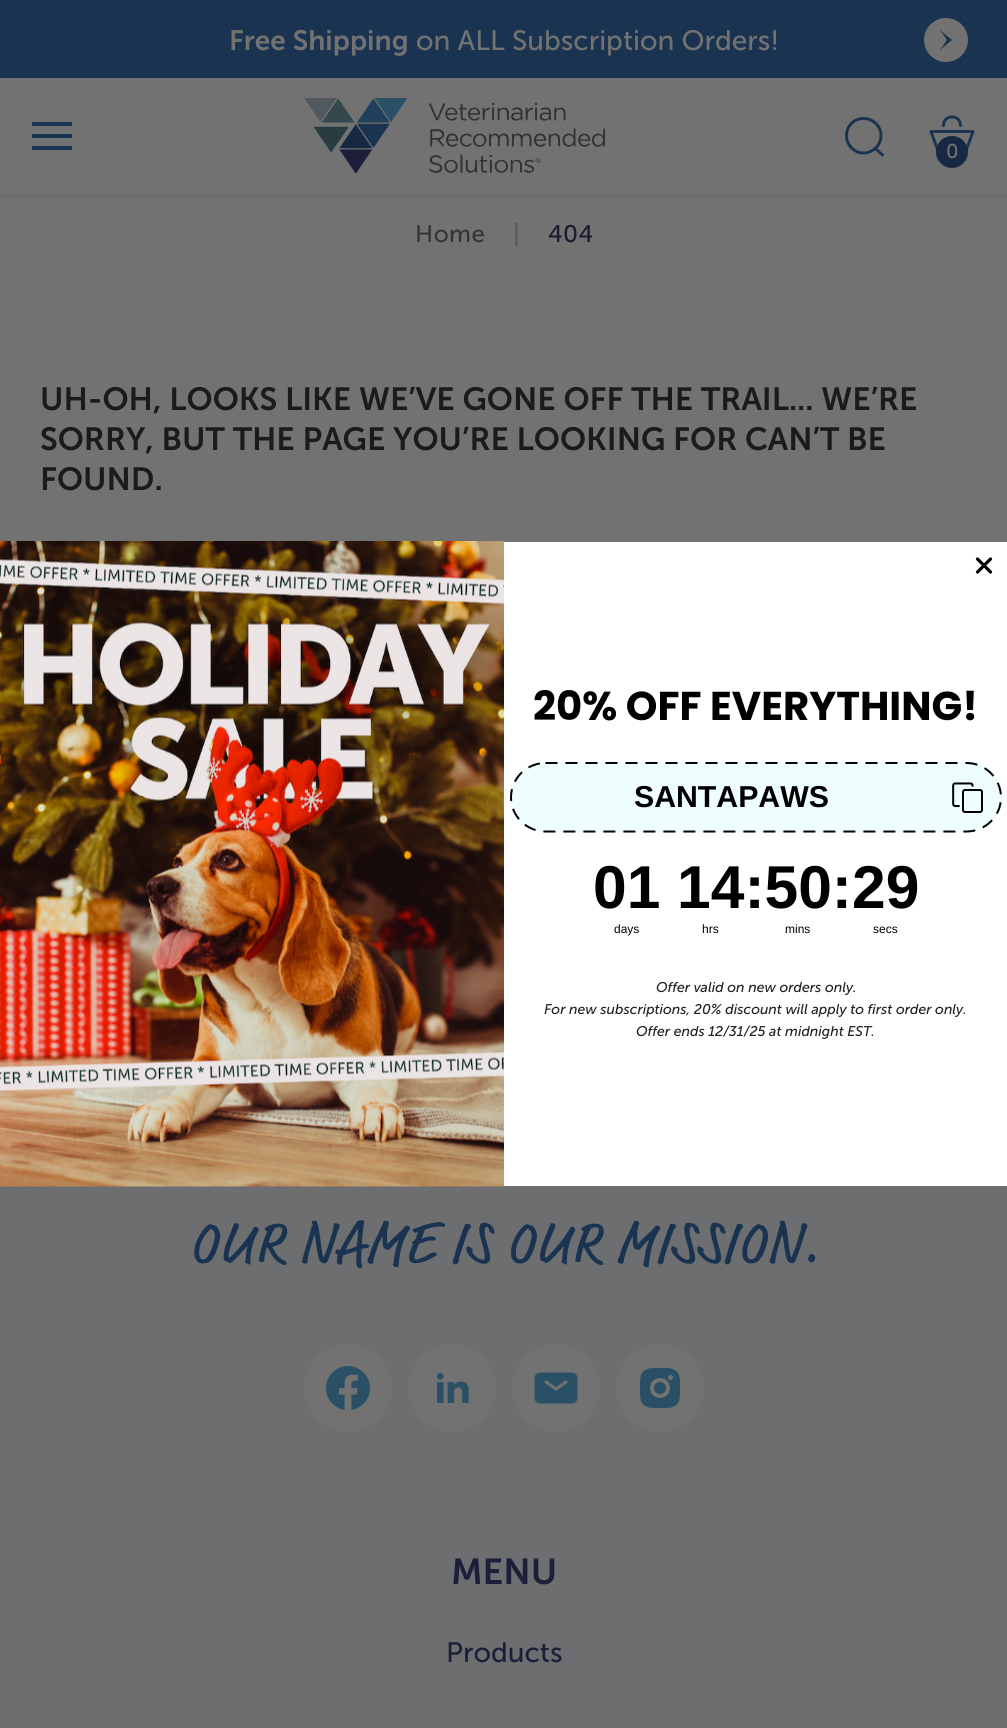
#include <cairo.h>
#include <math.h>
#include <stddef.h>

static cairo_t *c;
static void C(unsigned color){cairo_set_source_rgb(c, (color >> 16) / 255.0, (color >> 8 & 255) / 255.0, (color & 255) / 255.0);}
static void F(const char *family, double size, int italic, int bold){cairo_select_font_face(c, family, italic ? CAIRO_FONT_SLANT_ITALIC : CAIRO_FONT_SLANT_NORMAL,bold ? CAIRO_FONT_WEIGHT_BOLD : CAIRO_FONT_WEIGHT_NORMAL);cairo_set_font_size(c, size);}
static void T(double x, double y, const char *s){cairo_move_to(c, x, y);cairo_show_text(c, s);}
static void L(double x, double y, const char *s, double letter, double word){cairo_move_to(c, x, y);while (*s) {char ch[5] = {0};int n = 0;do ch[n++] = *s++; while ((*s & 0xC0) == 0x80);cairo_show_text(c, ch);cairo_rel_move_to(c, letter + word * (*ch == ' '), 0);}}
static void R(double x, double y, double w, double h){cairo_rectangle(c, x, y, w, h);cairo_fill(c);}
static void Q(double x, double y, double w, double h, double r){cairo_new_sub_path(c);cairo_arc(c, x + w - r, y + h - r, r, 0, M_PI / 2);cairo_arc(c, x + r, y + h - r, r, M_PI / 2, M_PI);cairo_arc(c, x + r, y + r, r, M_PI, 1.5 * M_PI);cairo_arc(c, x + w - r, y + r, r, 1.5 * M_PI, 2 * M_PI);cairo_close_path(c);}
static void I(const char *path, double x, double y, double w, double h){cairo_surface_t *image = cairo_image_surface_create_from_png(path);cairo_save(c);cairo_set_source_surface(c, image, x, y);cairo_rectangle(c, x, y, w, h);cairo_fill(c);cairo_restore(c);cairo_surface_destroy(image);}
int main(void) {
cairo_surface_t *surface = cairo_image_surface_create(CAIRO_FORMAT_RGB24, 1007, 1728);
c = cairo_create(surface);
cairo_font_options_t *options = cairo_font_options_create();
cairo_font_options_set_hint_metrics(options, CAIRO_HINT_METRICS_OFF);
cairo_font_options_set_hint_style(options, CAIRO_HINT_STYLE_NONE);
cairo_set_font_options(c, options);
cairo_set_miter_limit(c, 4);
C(0x727272);
cairo_paint(c);
C(0x193350);
R(0,0,1007,78);
F("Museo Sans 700 SemiBold",28,0,0);
C(0x727272);
T(229,50,"Free Shipping");
F("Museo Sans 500",28,0,0);
T(416,50,"on ALL Subscription Orders!");
cairo_new_path(c);
cairo_arc(c,946,40,22,0,2 * M_PI);
cairo_fill(c);
I("1.png",940,30,12,20);
C(0x6d6e6f);
R(0,194,1007,4);
C(0x193350);
R(32,122,40,4);
R(32,134,40,4);
R(32,146,40,4);
I("2.png",304,98,301,76);
cairo_new_path(c);
cairo_move_to(c,863.5,153);
cairo_curve_to(c,873,153,881,145,881,135.5);
cairo_curve_to(c,881,126,873,118.5,863.5,118.5);
cairo_curve_to(c,854,118.5,846.5,126,846.5,135.5);
cairo_curve_to(c,846.5,145,854,153,863.5,153);
cairo_close_path(c);
cairo_move_to(c,875.5,148.5);
cairo_line_to(c,882.5,155);
cairo_set_line_width(c,2.9);
cairo_set_line_cap(c,CAIRO_LINE_CAP_ROUND);
cairo_set_line_join(c,CAIRO_LINE_JOIN_ROUND);
cairo_stroke(c);
cairo_new_path(c);
cairo_move_to(c,960.5,125.5);
cairo_curve_to(c,960.5,114,943.5,114,943.5,125.5);
cairo_move_to(c,931,131.5);
cairo_line_to(c,973,131.5);
cairo_line_to(c,964.5,155);
cairo_line_to(c,939.5,155);
cairo_close_path(c);
cairo_stroke(c);
C(0x172843);
cairo_arc(c,952,152,16,0,2 * M_PI);
cairo_fill(c);
F("Museo Sans 500",20,0,0);
C(0x727272);
T(946,158,"0");
F("Museo Sans 500",24,0,0);
C(0x343536);
L(415,242,"Home",.5,0);
C(0x505a5e);
T(513,242,"|");
C(0x1a1c30);
L(548,242,"404",.5,0);
F("Museo Sans 700 SemiBold",32,0,0);
C(0x191b1c);
T(40,410,"UH-OH, LOOKS LIKE WE’VE GONE OFF THE TRAIL... WE’RE");
T(40,450,"SORRY, BUT THE PAGE YOU’RE LOOKING FOR CAN’T BE");
T(40,490,"FOUND.");
C(0xffffff);
R(504,542,503,644);
cairo_new_path(c);
cairo_move_to(c,977.5,559);
cairo_line_to(c,990.5,572);
cairo_move_to(c,977.5,572);
cairo_line_to(c,990.5,559);
cairo_close_path(c);
C(0x000000);
cairo_set_line_width(c,3.2);
cairo_stroke(c);
C(0x6d6e6f);
R(0,1186,1007,542);
I("3.png",0,541,504,646);
F("Poppins",40.25,0,1);
C(0x000000);
T(533,720,"20% OFF EVERYTHING!");
C(0xeefdfe);
Q(510,762,492,70,35);
cairo_fill(c);
cairo_new_path(c);
cairo_move_to(c,545.5,763);
cairo_line_to(c,966.5,763);
cairo_curve_to(c,985.5,763,1001,778.5,1001,797.5);
cairo_curve_to(c,1001,816,985.5,831.5,966.5,831.5);
cairo_line_to(c,545.5,831.5);
cairo_curve_to(c,526.5,831.5,511,816,511,797.5);
cairo_curve_to(c,511,778.5,526.5,763,545.5,763);
cairo_close_path(c);
C(0x000000);
cairo_set_line_width(c,2);
cairo_set_line_cap(c,CAIRO_LINE_CAP_BUTT);
cairo_set_line_join(c,CAIRO_LINE_JOIN_MITER);
cairo_set_dash(c,(double[]){12,8},2,0);
cairo_stroke(c);
F("Liberation Sans",30.25,0,1);
T(634,807,"SANTAPAWS");
I("4.png",952,782,31,31);
F("Liberation Sans",60.5,0,1);
T(593,908,"01 14:50:29");
F("Liberation Sans",12,0,0);
T(614,933,"days");
T(702,933,"hrs");
T(785,933,"mins");
T(873,933,"secs");
F("Museo Sans 500",14.1,1,0);
C(0x222222);
T(656,992,"Offer valid on new orders only.");
T(544,1014,"For new subscriptions, 20% discount will apply to first order only.");
T(636,1036,"Offer ends 12/31/25 at midnight EST.");
F("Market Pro",60,0,0);
C(0x193350);
T(189,1262,"OUR NAME IS OUR MISSION.");
C(0x727272);
cairo_new_path(c);
cairo_arc(c,348,1388,44,0,2 * M_PI);
cairo_fill(c);
I("5.png",326,1366,44,44);
cairo_arc(c,452,1388,44,0,2 * M_PI);
cairo_fill(c);
I("6.png",436,1373,33,30);
cairo_arc(c,556,1388,44,0,2 * M_PI);
cairo_fill(c);
I("7.png",534,1372,44,32);
cairo_arc(c,660,1388,44,0,2 * M_PI);
cairo_fill(c);
I("8.png",640,1368,40,40);
F("Museo Sans 700 SemiBold",36,0,0);
C(0x1d1e39);
T(451,1584,"MENU");
F("Museo Sans 500",28,0,0);
T(446,1662,"Products");
cairo_surface_write_to_png(surface, "o.png");
cairo_font_options_destroy(options);
cairo_destroy(c);
cairo_surface_destroy(surface);
return 0;
}
